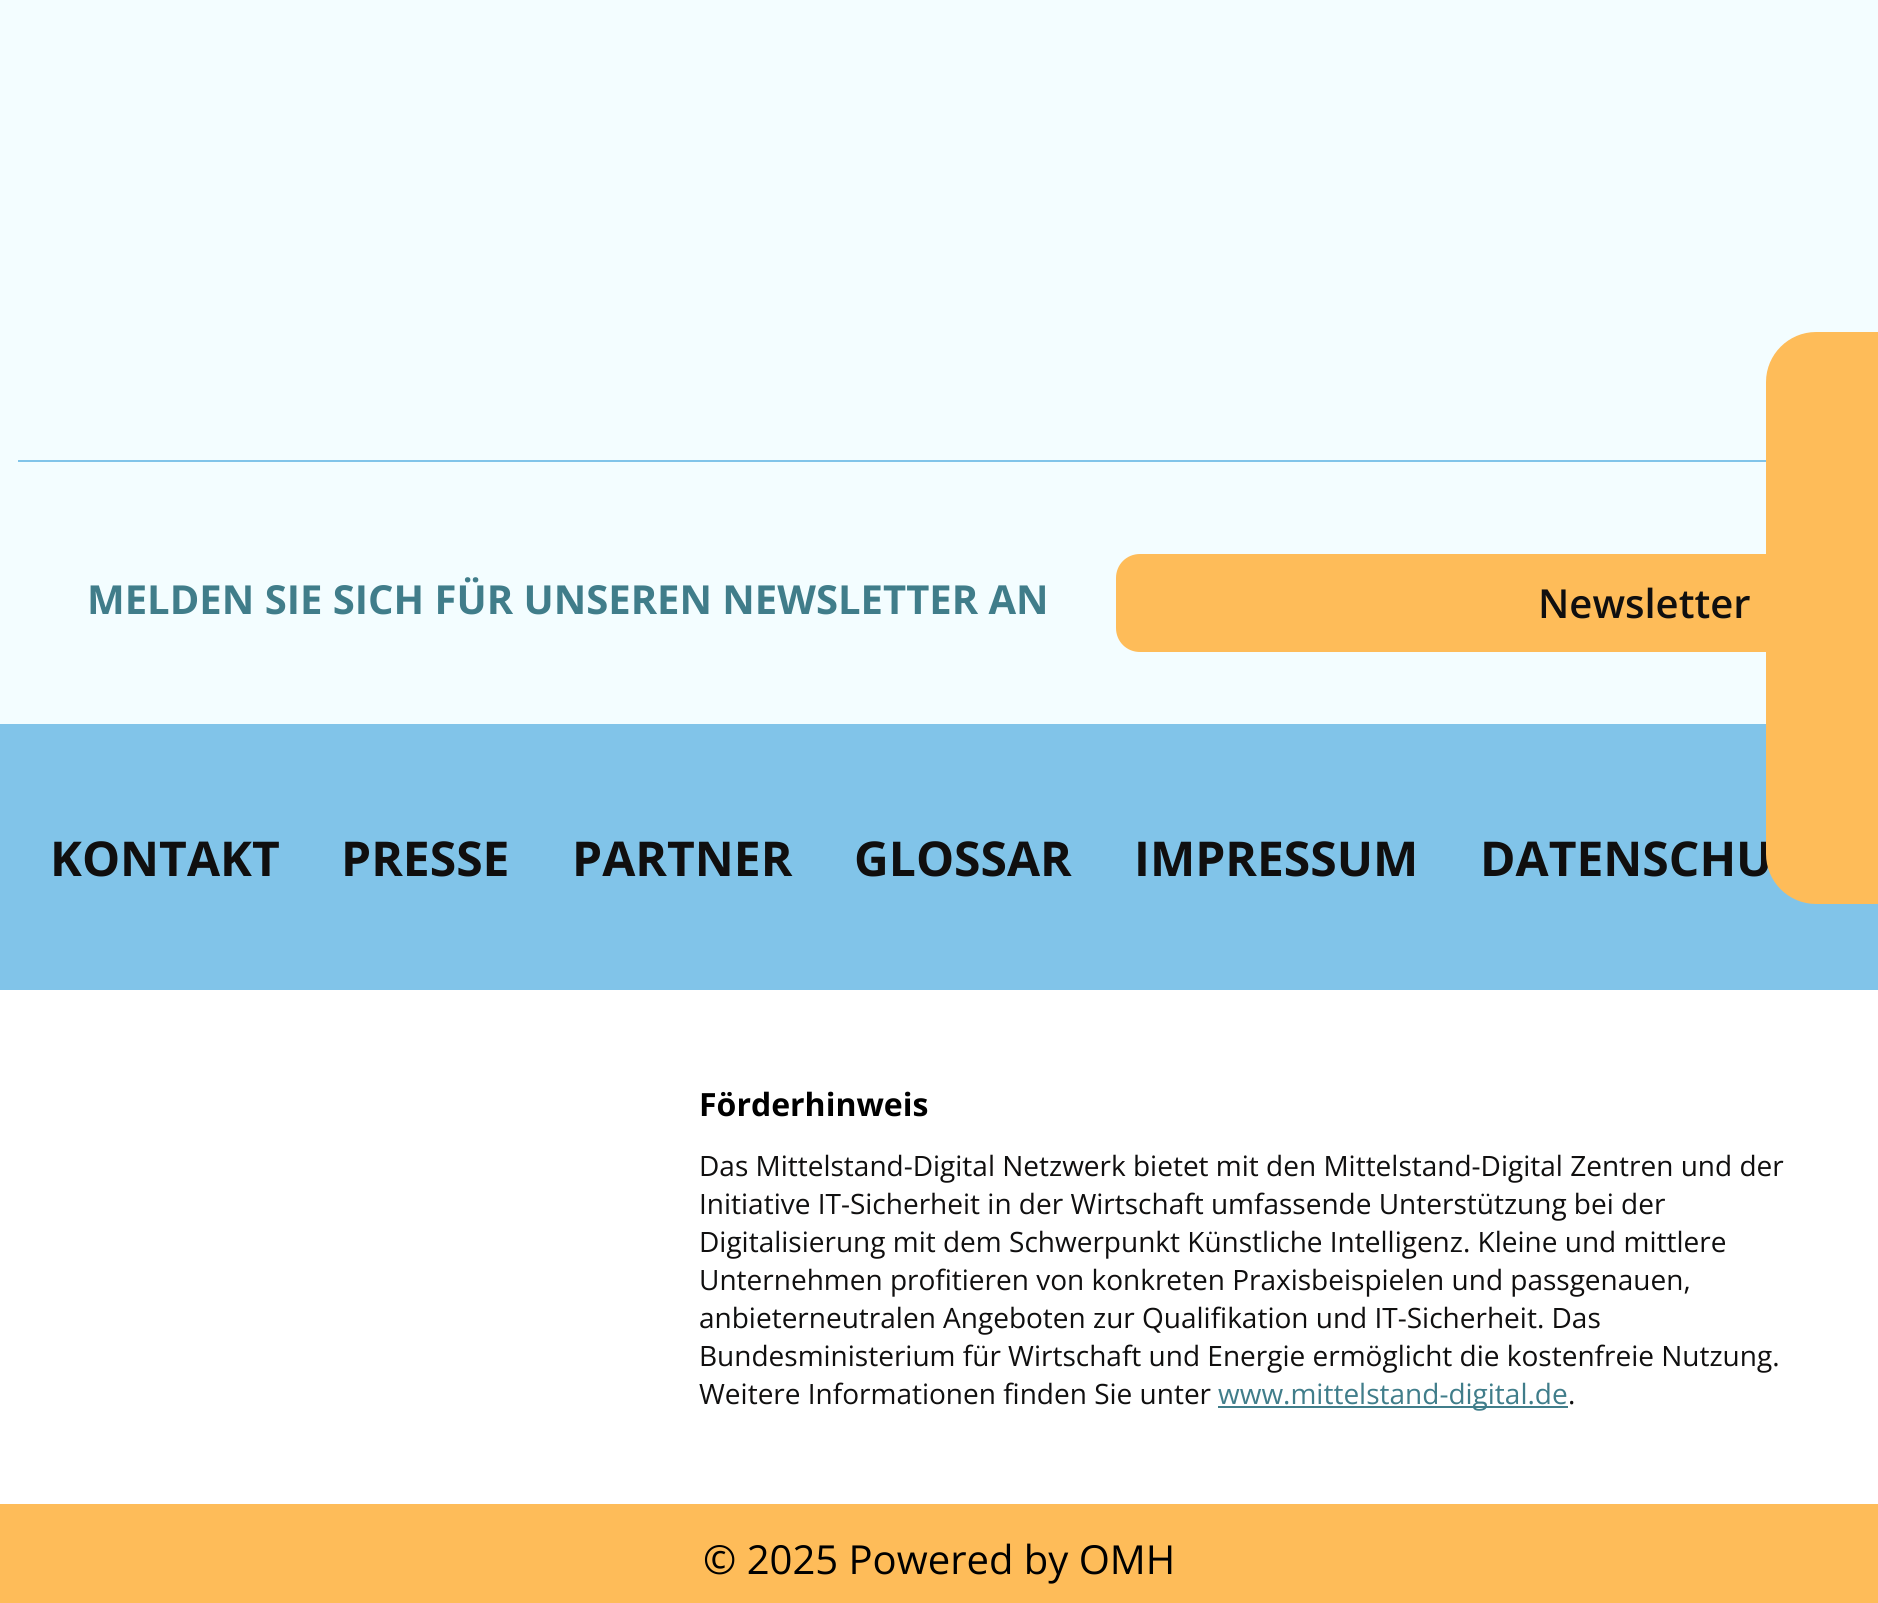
#include <cairo.h>
#include <math.h>
#include <stddef.h>

static cairo_t *c;
static void C(unsigned color){cairo_set_source_rgb(c, (color >> 16) / 255.0, (color >> 8 & 255) / 255.0, (color & 255) / 255.0);}
static void F(const char *family, double size, int italic, int bold){cairo_select_font_face(c, family, italic ? CAIRO_FONT_SLANT_ITALIC : CAIRO_FONT_SLANT_NORMAL,bold ? CAIRO_FONT_WEIGHT_BOLD : CAIRO_FONT_WEIGHT_NORMAL);cairo_set_font_size(c, size);}
static void T(double x, double y, const char *s){cairo_move_to(c, x, y);cairo_show_text(c, s);}
static void R(double x, double y, double w, double h){cairo_rectangle(c, x, y, w, h);cairo_fill(c);}
int main(void) {
cairo_surface_t *surface = cairo_image_surface_create(CAIRO_FORMAT_RGB24, 1878, 1603);
c = cairo_create(surface);
cairo_font_options_t *options = cairo_font_options_create();
cairo_font_options_set_hint_metrics(options, CAIRO_HINT_METRICS_OFF);
cairo_font_options_set_hint_style(options, CAIRO_HINT_STYLE_NONE);
cairo_set_font_options(c, options);
cairo_set_miter_limit(c, 4);
C(0xf3fdff);
cairo_paint(c);
C(0x81c4e9);
R(18,460,1748,2);
F("Open Sans",40,0,1);
C(0x407d8a);
T(87,614,"MELDEN SIE SICH FÜR UNSEREN NEWSLETTER AN");
C(0xfebc59);
cairo_new_path(c);
cairo_move_to(c,1140,554);
cairo_line_to(c,1790,554);
cairo_line_to(c,1790,628);
cairo_curve_to(c,1790,641.5,1779.5,652,1766,652);
cairo_line_to(c,1140,652);
cairo_curve_to(c,1126.5,652,1116,641.5,1116,628);
cairo_line_to(c,1116,578);
cairo_curve_to(c,1116,564.5,1126.5,554,1140,554);
cairo_close_path(c);
cairo_fill(c);
F("Open Sans SemiBold",40,0,0);
C(0x100f0f);
T(1538,618,"Newsletter");
C(0x81c4e9);
R(0,724,1878,266);
F("Open Sans",48,0,1);
C(0x100f0f);
T(50,876,"KONTAKT");
T(341,876,"PRESSE");
T(572,876,"PARTNER");
T(854,876,"GLOSSAR");
T(1134,876,"IMPRESSUM");
T(1480,876,"DATENSCHU");
C(0xffffff);
R(0,990,1878,514);
F("Open Sans",32,0,1);
C(0x000000);
T(699,1116,"Förderhinweis");
F("Open Sans",28,0,0);
C(0x100f0f);
T(699,1176,"Das Mittelstand-Digital Netzwerk bietet mit den Mittelstand-Digital Zentren und der");
T(699,1214,"Initiative IT-Sicherheit in der Wirtschaft umfassende Unterstützung bei der");
T(699,1252,"Digitalisierung mit dem Schwerpunkt Künstliche Intelligenz. Kleine und mittlere");
T(699,1290,"Unternehmen profitieren von konkreten Praxisbeispielen und passgenauen,");
T(699,1328,"anbieterneutralen Angeboten zur Qualifikation und IT-Sicherheit. Das");
T(699,1366,"Bundesministerium für Wirtschaft und Energie ermöglicht die kostenfreie Nutzung.");
T(699,1404,"Weitere Informationen finden Sie unter");
C(0x407d8a);
R(1218,1406,350,2);
T(1218,1404,"www.mittelstand-digital.de");
C(0x100f0f);
T(1568,1404,".");
C(0xfebc59);
R(0,1504,1878,99);
F("Open Sans",40,0,0);
C(0x000000);
T(703,1574,"© 2025 Powered by OMH");
C(0xfebc59);
cairo_new_path(c);
cairo_move_to(c,1816,332);
cairo_line_to(c,1878,332);
cairo_line_to(c,1878,904);
cairo_line_to(c,1816,904);
cairo_curve_to(c,1788.5,904,1766,881.5,1766,854);
cairo_line_to(c,1766,382);
cairo_curve_to(c,1766,354.5,1788.5,332,1816,332);
cairo_close_path(c);
cairo_fill(c);
cairo_surface_write_to_png(surface, "o.png");
cairo_font_options_destroy(options);
cairo_destroy(c);
cairo_surface_destroy(surface);
return 0;
}
